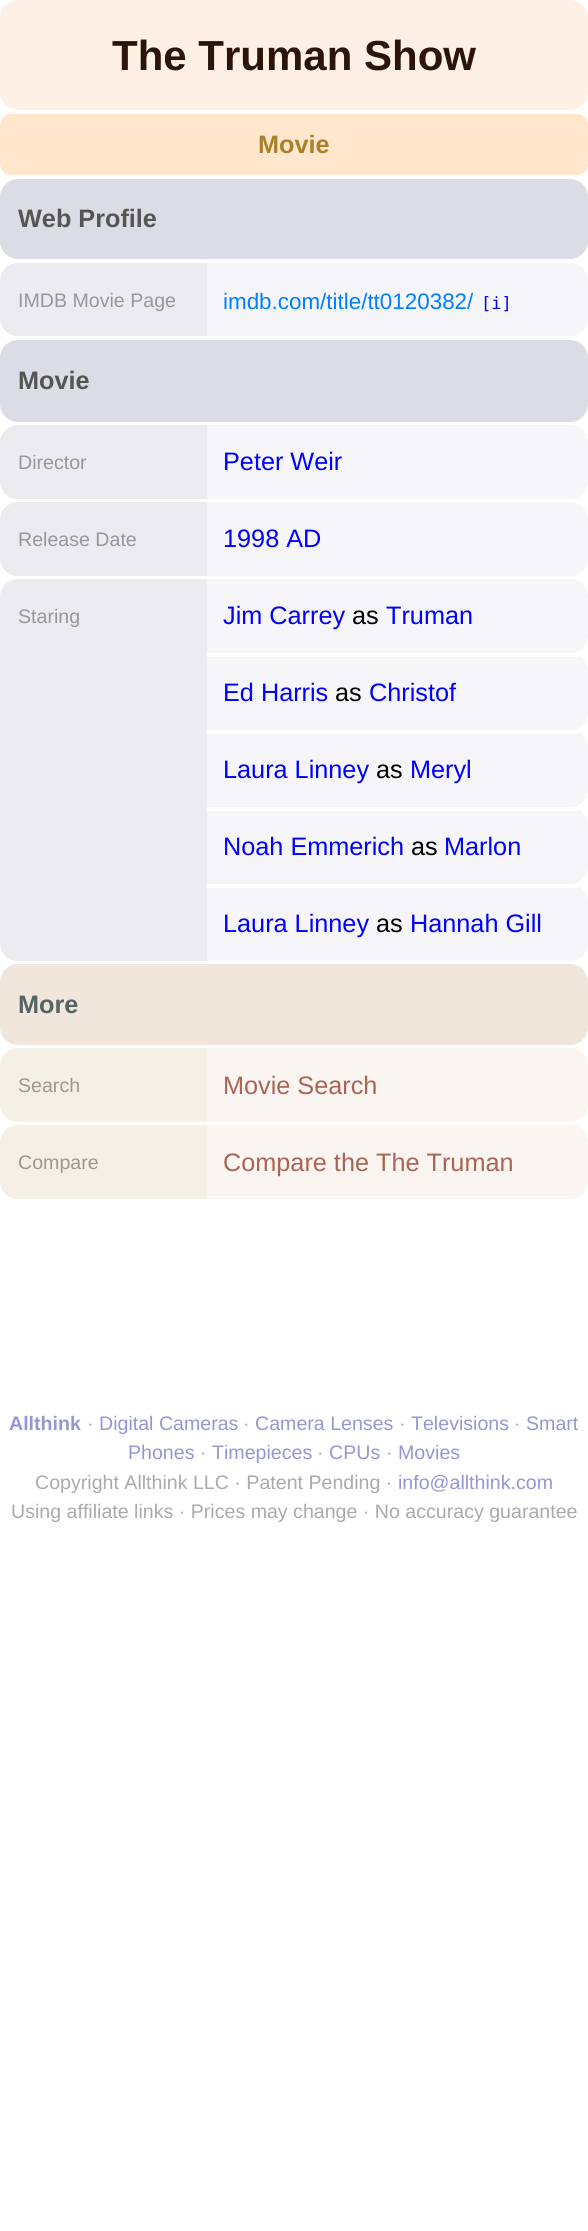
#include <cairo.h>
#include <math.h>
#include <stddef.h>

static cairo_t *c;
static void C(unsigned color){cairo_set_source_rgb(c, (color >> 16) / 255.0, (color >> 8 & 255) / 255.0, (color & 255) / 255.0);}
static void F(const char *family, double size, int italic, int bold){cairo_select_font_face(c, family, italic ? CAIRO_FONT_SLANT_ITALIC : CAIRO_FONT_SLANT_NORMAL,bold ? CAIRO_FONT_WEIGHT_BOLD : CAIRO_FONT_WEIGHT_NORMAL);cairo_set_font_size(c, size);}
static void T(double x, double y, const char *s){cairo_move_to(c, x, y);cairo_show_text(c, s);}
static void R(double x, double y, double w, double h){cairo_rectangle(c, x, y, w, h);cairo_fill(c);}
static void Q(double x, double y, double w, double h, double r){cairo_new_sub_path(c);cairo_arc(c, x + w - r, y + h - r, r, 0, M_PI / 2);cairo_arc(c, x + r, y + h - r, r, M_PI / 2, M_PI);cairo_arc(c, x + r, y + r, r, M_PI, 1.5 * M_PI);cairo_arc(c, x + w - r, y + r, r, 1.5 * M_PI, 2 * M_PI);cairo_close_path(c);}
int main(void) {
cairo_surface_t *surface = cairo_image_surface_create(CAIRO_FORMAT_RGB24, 588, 2231);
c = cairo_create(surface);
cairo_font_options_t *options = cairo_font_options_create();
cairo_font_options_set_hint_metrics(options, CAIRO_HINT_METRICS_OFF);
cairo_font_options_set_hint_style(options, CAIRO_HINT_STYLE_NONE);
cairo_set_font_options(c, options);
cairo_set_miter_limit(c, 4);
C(0xffffff);
cairo_paint(c);
C(0xfff0e6);
Q(0,0,588,110,18);
cairo_fill(c);
F("Liberation Sans",42,0,1);
C(0x2b150b);
T(112,70,"The Truman Show");
C(0xffe6cc);
Q(0,114,588,61,11);
cairo_fill(c);
F("Liberation Sans",25.25,0,1);
C(0xaa802b);
T(258,153,"Movie");
C(0xdcdce6);
Q(0,179,588,80,18);
cairo_fill(c);
C(0x555555);
T(18,227,"Web Profile");
C(0xebebf0);
cairo_new_path(c);
cairo_move_to(c,18,263);
cairo_line_to(c,207,263);
cairo_line_to(c,207,336);
cairo_line_to(c,18,336);
cairo_curve_to(c,8,336,0,328,0,318);
cairo_line_to(c,0,281);
cairo_curve_to(c,0,271,8,263,18,263);
cairo_close_path(c);
cairo_fill(c);
F("Liberation Sans",19.6,0,0);
C(0x9696a0);
T(18,307,"IMDB Movie Page");
C(0xf5f5fa);
cairo_new_path(c);
cairo_move_to(c,207,263);
cairo_line_to(c,570,263);
cairo_curve_to(c,580,263,588,271,588,281);
cairo_line_to(c,588,318);
cairo_curve_to(c,588,328,580,336,570,336);
cairo_line_to(c,207,336);
cairo_close_path(c);
cairo_fill(c);
F("Liberation Sans",22.4,0,0);
C(0x0080ff);
T(223,309,"imdb.com/title/tt0120382/");
F("DejaVu Sans Mono",17,0,0);
C(0x0000ff);
T(481,309,"[i]");
C(0xdcdce6);
Q(0,340,588,82,18);
cairo_fill(c);
F("Liberation Sans",25.25,0,1);
C(0x555555);
T(18,389,"Movie");
C(0xebebf0);
cairo_new_path(c);
cairo_move_to(c,18,425);
cairo_line_to(c,207,425);
cairo_line_to(c,207,499);
cairo_line_to(c,18,499);
cairo_curve_to(c,8,499,0,491,0,481);
cairo_line_to(c,0,443);
cairo_curve_to(c,0,433,8,425,18,425);
cairo_close_path(c);
cairo_fill(c);
F("Liberation Sans",19.6,0,0);
C(0x9696a0);
T(18,469,"Director");
C(0xf5f5fa);
cairo_new_path(c);
cairo_move_to(c,207,425);
cairo_line_to(c,570,425);
cairo_curve_to(c,580,425,588,433,588,443);
cairo_line_to(c,588,481);
cairo_curve_to(c,588,491,580,499,570,499);
cairo_line_to(c,207,499);
cairo_close_path(c);
cairo_fill(c);
F("Liberation Sans",25.25,0,0);
C(0x0000ff);
T(223,470,"Peter Weir");
C(0xebebf0);
cairo_new_path(c);
cairo_move_to(c,18,502);
cairo_line_to(c,207,502);
cairo_line_to(c,207,576);
cairo_line_to(c,18,576);
cairo_curve_to(c,8,576,0,568,0,558);
cairo_line_to(c,0,520);
cairo_curve_to(c,0,510,8,502,18,502);
cairo_close_path(c);
cairo_fill(c);
F("Liberation Sans",19.6,0,0);
C(0x9696a0);
T(18,546,"Release Date");
C(0xf5f5fa);
cairo_new_path(c);
cairo_move_to(c,207,502);
cairo_line_to(c,570,502);
cairo_curve_to(c,580,502,588,510,588,520);
cairo_line_to(c,588,558);
cairo_curve_to(c,588,568,580,576,570,576);
cairo_line_to(c,207,576);
cairo_close_path(c);
cairo_fill(c);
F("Liberation Sans",25.25,0,0);
C(0x0000ff);
T(223,547,"1998 AD");
C(0xebebf0);
cairo_new_path(c);
cairo_move_to(c,18,579);
cairo_line_to(c,207,579);
cairo_line_to(c,207,961);
cairo_line_to(c,18,961);
cairo_curve_to(c,8,961,0,953,0,943);
cairo_line_to(c,0,597);
cairo_curve_to(c,0,587,8,579,18,579);
cairo_close_path(c);
cairo_fill(c);
F("Liberation Sans",19.6,0,0);
C(0x9696a0);
T(18,623,"Staring");
C(0xf5f5fa);
cairo_new_path(c);
cairo_move_to(c,207,579);
cairo_line_to(c,570,579);
cairo_curve_to(c,580,579,588,587,588,597);
cairo_line_to(c,588,635);
cairo_curve_to(c,588,645,580,653,570,653);
cairo_line_to(c,207,653);
cairo_close_path(c);
cairo_fill(c);
F("Liberation Sans",25.25,0,0);
C(0x0000ff);
T(223,624,"Jim Carrey");
C(0x000000);
T(352,624,"as");
C(0x0000ff);
T(386,624,"Truman");
C(0xf5f5fa);
cairo_new_path(c);
cairo_move_to(c,207,653);
cairo_line_to(c,570,653);
cairo_curve_to(c,580,653,588,661,588,671);
cairo_line_to(c,588,712);
cairo_curve_to(c,588,722,580,730,570,730);
cairo_line_to(c,207,730);
cairo_close_path(c);
cairo_fill(c);
C(0xffffff);
R(207,653,372,4);
C(0x0000ff);
T(223,701,"Ed Harris");
C(0x000000);
T(335,701,"as");
C(0x0000ff);
T(369,701,"Christof");
C(0xf5f5fa);
cairo_new_path(c);
cairo_move_to(c,207,730);
cairo_line_to(c,570,730);
cairo_curve_to(c,580,730,588,738,588,748);
cairo_line_to(c,588,789);
cairo_curve_to(c,588,799,580,807,570,807);
cairo_line_to(c,207,807);
cairo_close_path(c);
cairo_fill(c);
C(0xffffff);
R(207,730,372,4);
C(0x0000ff);
T(223,778,"Laura Linney");
C(0x000000);
T(376,778,"as");
C(0x0000ff);
T(410,778,"Meryl");
C(0xf5f5fa);
cairo_new_path(c);
cairo_move_to(c,207,807);
cairo_line_to(c,570,807);
cairo_curve_to(c,580,807,588,815,588,825);
cairo_line_to(c,588,866);
cairo_curve_to(c,588,876,580,884,570,884);
cairo_line_to(c,207,884);
cairo_close_path(c);
cairo_fill(c);
C(0xffffff);
R(207,807,372,4);
C(0x0000ff);
T(223,855,"Noah Emmerich");
C(0x000000);
T(411,855,"as");
C(0x0000ff);
T(444,855,"Marlon");
C(0xf5f5fa);
cairo_new_path(c);
cairo_move_to(c,207,884);
cairo_line_to(c,570,884);
cairo_curve_to(c,580,884,588,892,588,902);
cairo_line_to(c,588,943);
cairo_curve_to(c,588,953,580,961,570,961);
cairo_line_to(c,207,961);
cairo_close_path(c);
cairo_fill(c);
C(0xffffff);
R(207,884,372,4);
C(0x0000ff);
T(223,932,"Laura Linney");
C(0x000000);
T(376,932,"as");
C(0x0000ff);
T(410,932,"Hannah Gill");
C(0xf0e6dc);
Q(0,964,588,81,18);
cairo_fill(c);
F("Liberation Sans",25.25,0,1);
C(0x556464);
T(18,1013,"More");
C(0xf5f0e6);
cairo_new_path(c);
cairo_move_to(c,18,1048);
cairo_line_to(c,207,1048);
cairo_line_to(c,207,1122);
cairo_line_to(c,18,1122);
cairo_curve_to(c,8,1122,0,1114,0,1104);
cairo_line_to(c,0,1066);
cairo_curve_to(c,0,1056,8,1048,18,1048);
cairo_close_path(c);
cairo_fill(c);
F("Liberation Sans",19.6,0,0);
C(0xa0968c);
T(18,1092,"Search");
C(0xfaf5f0);
cairo_new_path(c);
cairo_move_to(c,207,1048);
cairo_line_to(c,570,1048);
cairo_curve_to(c,580,1048,588,1056,588,1066);
cairo_line_to(c,588,1104);
cairo_curve_to(c,588,1114,580,1122,570,1122);
cairo_line_to(c,207,1122);
cairo_close_path(c);
cairo_fill(c);
F("Liberation Sans",25.25,0,0);
C(0xaa6455);
T(223,1094,"Movie Search");
C(0xf5f0e6);
cairo_new_path(c);
cairo_move_to(c,18,1125);
cairo_line_to(c,207,1125);
cairo_line_to(c,207,1199);
cairo_line_to(c,18,1199);
cairo_curve_to(c,8,1199,0,1191,0,1181);
cairo_line_to(c,0,1143);
cairo_curve_to(c,0,1133,8,1125,18,1125);
cairo_close_path(c);
cairo_fill(c);
F("Liberation Sans",19.6,0,0);
C(0xa0968c);
T(18,1169,"Compare");
C(0xfaf5f0);
cairo_new_path(c);
cairo_move_to(c,207,1125);
cairo_line_to(c,570,1125);
cairo_curve_to(c,580,1125,588,1133,588,1143);
cairo_line_to(c,588,1181);
cairo_curve_to(c,588,1191,580,1199,570,1199);
cairo_line_to(c,207,1199);
cairo_close_path(c);
cairo_fill(c);
F("Liberation Sans",25.25,0,0);
C(0xaa6455);
T(223,1171,"Compare the The Truman");
F("Liberation Sans",19.6,0,1);
C(0x9696d5);
T(9,1430,"Allthink");
F("Liberation Sans",19.6,0,0);
C(0xaaaaaa);
T(87,1430,"·");
C(0x9696d5);
T(99,1430,"Digital Cameras");
C(0xaaaaaa);
T(243,1430,"·");
C(0x9696d5);
T(255,1430,"Camera Lenses");
C(0xaaaaaa);
T(399,1430,"·");
C(0x9696d5);
T(411,1430,"Televisions");
C(0xaaaaaa);
T(514,1430,"·");
C(0x9696d5);
T(526,1430,"Smart");
T(128,1459,"Phones");
C(0xaaaaaa);
T(200,1459,"·");
C(0x9696d5);
T(212,1459,"Timepieces");
C(0xaaaaaa);
T(317,1459,"·");
C(0x9696d5);
T(329,1459,"CPUs");
C(0xaaaaaa);
T(386,1459,"·");
C(0x9696d5);
T(398,1459,"Movies");
C(0xaaaaaa);
T(35,1489,"Copyright Allthink LLC · Patent Pending ·");
C(0x9696d5);
T(398,1489,"info@allthink.com");
C(0xaaaaaa);
T(11,1518,"Using affiliate links · Prices may change · No accuracy guarantee");
cairo_surface_write_to_png(surface, "o.png");
cairo_font_options_destroy(options);
cairo_destroy(c);
cairo_surface_destroy(surface);
return 0;
}
